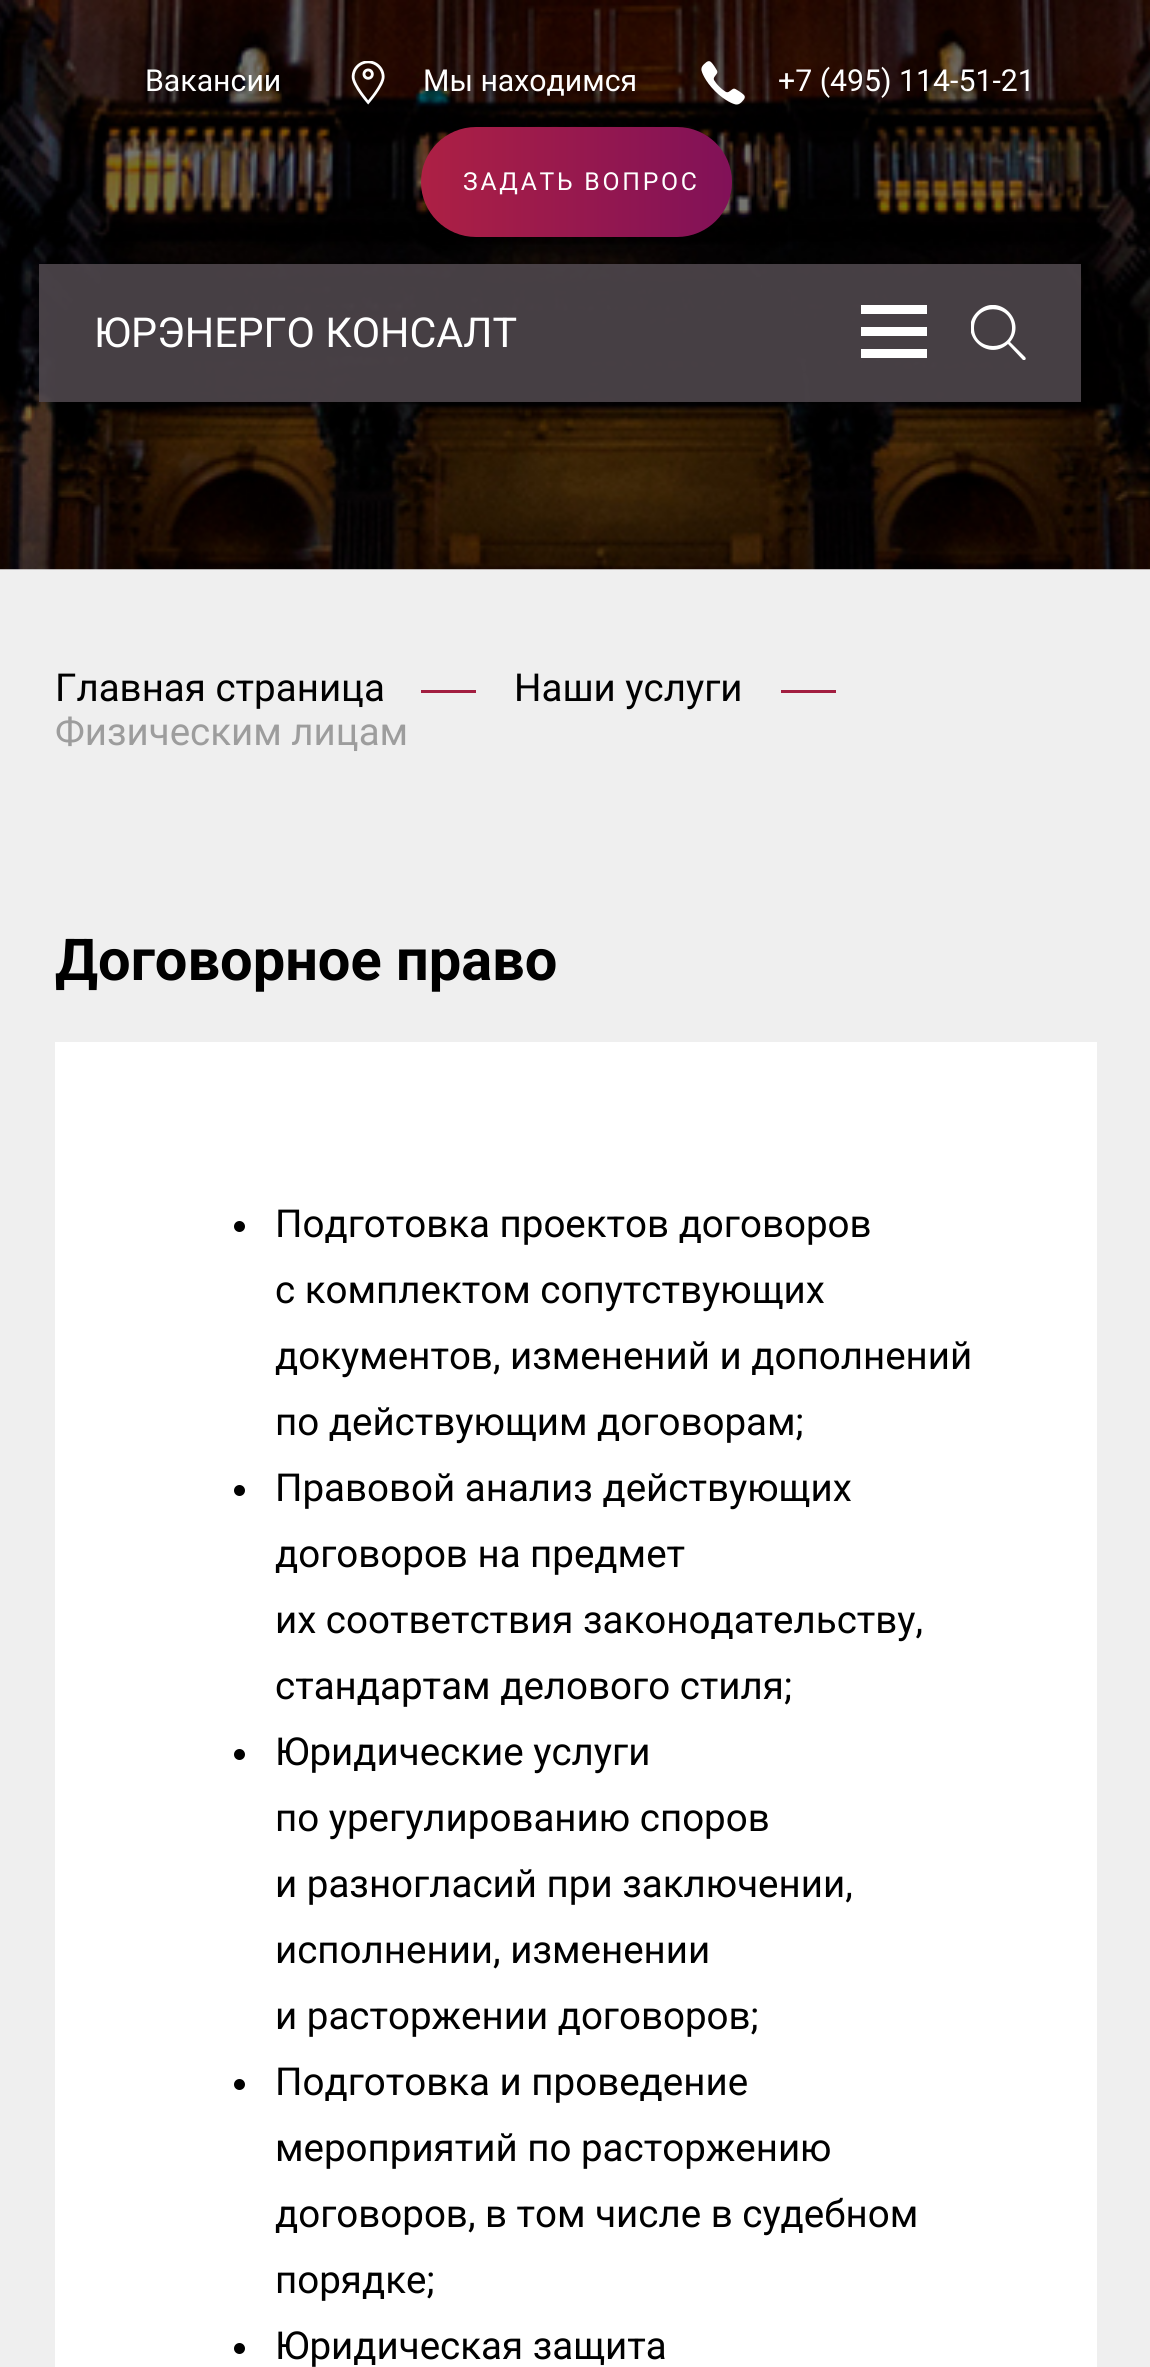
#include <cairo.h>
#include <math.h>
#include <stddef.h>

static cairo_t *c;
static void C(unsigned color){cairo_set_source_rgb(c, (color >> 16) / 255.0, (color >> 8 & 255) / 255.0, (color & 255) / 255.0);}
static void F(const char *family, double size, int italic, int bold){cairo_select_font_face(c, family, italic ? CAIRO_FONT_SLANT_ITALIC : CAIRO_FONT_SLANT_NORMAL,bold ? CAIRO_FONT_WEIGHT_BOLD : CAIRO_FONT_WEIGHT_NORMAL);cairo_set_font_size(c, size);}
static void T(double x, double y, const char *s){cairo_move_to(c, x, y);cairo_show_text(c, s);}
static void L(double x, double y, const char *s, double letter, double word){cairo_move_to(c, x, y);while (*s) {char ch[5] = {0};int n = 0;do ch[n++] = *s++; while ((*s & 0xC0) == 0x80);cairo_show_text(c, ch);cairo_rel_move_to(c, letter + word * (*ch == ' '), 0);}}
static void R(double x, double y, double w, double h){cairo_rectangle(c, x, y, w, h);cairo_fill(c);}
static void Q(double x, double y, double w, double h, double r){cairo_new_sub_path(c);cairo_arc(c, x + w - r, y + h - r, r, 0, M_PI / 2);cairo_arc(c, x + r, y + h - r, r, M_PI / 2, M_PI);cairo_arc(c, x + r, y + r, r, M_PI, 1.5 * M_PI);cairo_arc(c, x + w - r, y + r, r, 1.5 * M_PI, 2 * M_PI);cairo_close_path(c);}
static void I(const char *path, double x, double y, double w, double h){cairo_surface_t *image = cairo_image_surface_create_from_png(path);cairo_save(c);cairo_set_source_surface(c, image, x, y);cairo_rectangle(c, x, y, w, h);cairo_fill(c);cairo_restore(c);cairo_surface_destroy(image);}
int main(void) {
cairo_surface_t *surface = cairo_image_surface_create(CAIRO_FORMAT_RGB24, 1150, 2367);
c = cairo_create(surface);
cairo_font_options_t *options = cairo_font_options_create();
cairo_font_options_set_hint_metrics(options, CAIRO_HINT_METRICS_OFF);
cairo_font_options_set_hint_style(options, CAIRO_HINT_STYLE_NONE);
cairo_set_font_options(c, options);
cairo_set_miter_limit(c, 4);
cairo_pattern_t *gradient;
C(0xefefef);
cairo_paint(c);
I("1.png",0,0,1150,570);
F("Roboto",30.25,0,0);
C(0xffffff);
T(145,91,"Вакансии");
I("2.png",351,61,34,44);
T(423,91,"Мы находимся");
I("3.png",701,61,44,44);
T(778,91,"+7 (495) 114-51-21");
gradient = cairo_pattern_create_linear(421,182,732,182);
cairo_pattern_add_color_stop_rgba(gradient,0,0.678,0.125,0.267,1);
cairo_pattern_add_color_stop_rgba(gradient,1,0.506,0.067,0.345,1);
cairo_set_source(c,gradient);
cairo_pattern_destroy(gradient);
Q(421,127,311,110,55);
cairo_fill(c);
F("Roboto",24.75,0,0);
C(0xffffff);
L(463,190,"ЗАДАТЬ ВОПРОС",2.75,0);
cairo_set_source_rgba(c,0.325,0.29,0.314,0.85);
R(39,264,1042,138);
F("Roboto",41.25,0,0);
C(0xffffff);
T(94,347,"ЮРЭНЕРГО КОНСАЛТ");
cairo_save(c);
cairo_rectangle(c,861,292,66,79);
cairo_clip(c);
cairo_new_path(c);
cairo_move_to(c,854,358);
cairo_line_to(c,934,358);
cairo_line_to(c,934,349);
cairo_line_to(c,854,349);
cairo_close_path(c);
cairo_move_to(c,854,336);
cairo_line_to(c,934,336);
cairo_line_to(c,934,327);
cairo_line_to(c,854,327);
cairo_close_path(c);
cairo_move_to(c,854,305);
cairo_line_to(c,854,314);
cairo_line_to(c,934,314);
cairo_line_to(c,934,305);
cairo_close_path(c);
cairo_fill(c);
cairo_restore(c);
cairo_save(c);
cairo_rectangle(c,971,305,55,55);
cairo_clip(c);
cairo_set_fill_rule(c,CAIRO_FILL_RULE_EVEN_ODD);
cairo_new_path(c);
cairo_move_to(c,1025,360);
cairo_curve_to(c,1025,360,1024,360,1023,360);
cairo_line_to(c,1008,344);
cairo_curve_to(c,986,363,957,332,977,312);
cairo_curve_to(c,998,291,1028,321,1010,342);
cairo_line_to(c,1025,357);
cairo_curve_to(c,1026,358,1026,359,1025,360);
cairo_close_path(c);
cairo_move_to(c,1012,328);
cairo_curve_to(c,1012,303,974,303,974,328);
cairo_curve_to(c,974,352,1012,352,1012,328);
cairo_close_path(c);
cairo_fill(c);
cairo_restore(c);
F("Roboto",38.5,0,0);
C(0x000000);
T(55,701,"Главная страница");
C(0xa21e40);
R(421,690,55,3);
C(0x000000);
T(514,701,"Наши услуги");
C(0xa21e40);
R(781,690,55,3);
C(0x9d9d9d);
T(55,745,"Физическим лицам");
F("Roboto",57.75,0,1);
C(0x000000);
T(55,980,"Договорное право");
C(0xffffff);
R(55,1042,1042,1325);
C(0x000000);
cairo_new_path(c);
cairo_arc(c,239.5,1226.5,5.5,0,2 * M_PI);
cairo_fill(c);
F("Roboto",38.5,0,0);
T(275,1237,"Подготовка проектов договоров");
T(275,1303,"с комплектом сопутствующих");
T(275,1369,"документов, изменений и дополнений");
T(275,1435,"по действующим договорам;");
cairo_new_path(c);
cairo_arc(c,239.5,1490.5,5.5,0,2 * M_PI);
cairo_fill(c);
T(275,1501,"Правовой анализ действующих");
T(275,1567,"договоров на предмет");
T(275,1633,"их соответствия законодательству,");
T(275,1699,"стандартам делового стиля;");
cairo_new_path(c);
cairo_arc(c,239.5,1754.5,5.5,0,2 * M_PI);
cairo_fill(c);
T(275,1765,"Юридические услуги");
T(275,1831,"по урегулированию споров");
T(275,1897,"и разногласий при заключении,");
T(275,1963,"исполнении, изменении");
T(275,2029,"и расторжении договоров;");
cairo_new_path(c);
cairo_arc(c,239.5,2084.5,5.5,0,2 * M_PI);
cairo_fill(c);
T(275,2095,"Подготовка и проведение");
T(275,2161,"мероприятий по расторжению");
T(275,2227,"договоров, в том числе в судебном");
T(275,2293,"порядке;");
cairo_new_path(c);
cairo_arc(c,239.5,2348.5,5.5,0,2 * M_PI);
cairo_fill(c);
T(275,2359,"Юридическая защита");
cairo_surface_write_to_png(surface, "o.png");
cairo_font_options_destroy(options);
cairo_destroy(c);
cairo_surface_destroy(surface);
return 0;
}
